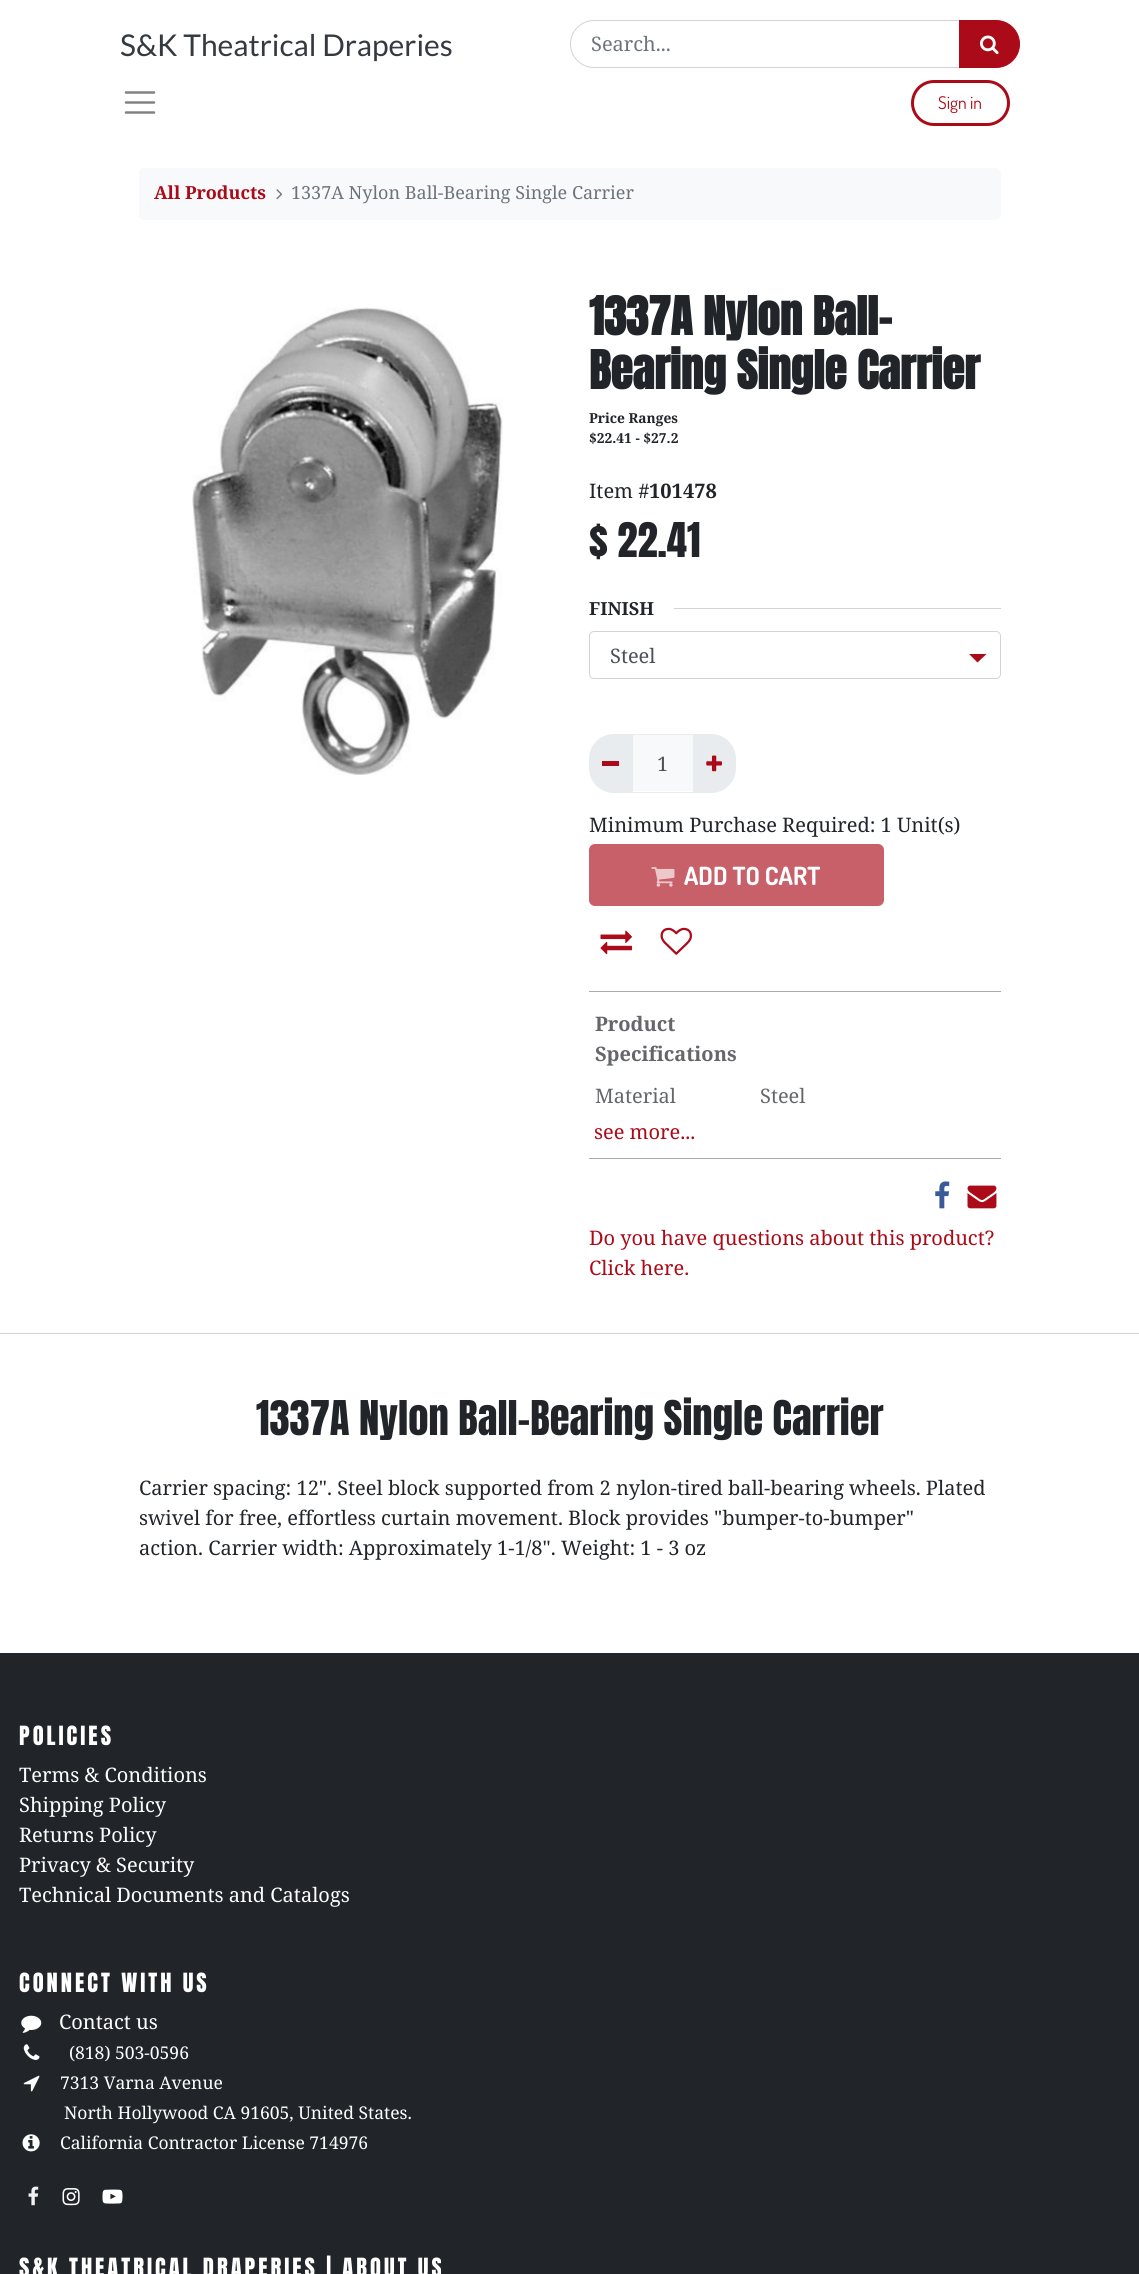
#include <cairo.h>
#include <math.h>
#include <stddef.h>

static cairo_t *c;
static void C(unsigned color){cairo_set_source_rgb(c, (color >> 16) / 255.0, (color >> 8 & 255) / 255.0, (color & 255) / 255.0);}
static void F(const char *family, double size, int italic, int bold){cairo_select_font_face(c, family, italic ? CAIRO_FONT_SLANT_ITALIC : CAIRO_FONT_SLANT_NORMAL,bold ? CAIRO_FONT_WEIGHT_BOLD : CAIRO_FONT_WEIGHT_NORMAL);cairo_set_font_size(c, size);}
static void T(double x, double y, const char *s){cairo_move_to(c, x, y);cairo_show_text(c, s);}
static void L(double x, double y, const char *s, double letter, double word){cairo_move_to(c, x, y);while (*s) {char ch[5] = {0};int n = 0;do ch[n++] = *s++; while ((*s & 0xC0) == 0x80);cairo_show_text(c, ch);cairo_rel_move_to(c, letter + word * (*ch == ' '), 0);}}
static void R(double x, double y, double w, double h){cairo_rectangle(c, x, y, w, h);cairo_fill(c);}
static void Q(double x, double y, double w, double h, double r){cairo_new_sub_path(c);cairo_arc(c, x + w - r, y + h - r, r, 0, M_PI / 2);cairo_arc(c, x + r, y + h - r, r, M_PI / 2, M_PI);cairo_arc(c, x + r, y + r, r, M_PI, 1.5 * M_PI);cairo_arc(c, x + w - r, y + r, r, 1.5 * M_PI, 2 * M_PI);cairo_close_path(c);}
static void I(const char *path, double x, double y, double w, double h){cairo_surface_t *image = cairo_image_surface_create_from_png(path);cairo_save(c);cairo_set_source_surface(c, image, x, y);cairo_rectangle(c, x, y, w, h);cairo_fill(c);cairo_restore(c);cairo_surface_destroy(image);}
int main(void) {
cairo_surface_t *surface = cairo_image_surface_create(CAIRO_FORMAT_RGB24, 1139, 2274);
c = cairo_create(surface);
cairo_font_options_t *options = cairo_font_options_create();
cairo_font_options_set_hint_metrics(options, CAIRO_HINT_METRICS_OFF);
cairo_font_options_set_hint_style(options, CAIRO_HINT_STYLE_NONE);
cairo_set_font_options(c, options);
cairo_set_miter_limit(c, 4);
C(0xffffff);
cairo_paint(c);
F("Lato",30,0,0);
C(0x343a40);
T(120,56,"S&K Theatrical Draperies");
cairo_new_path(c);
cairo_move_to(c,594,20.5);
cairo_line_to(c,959.5,20.5);
cairo_line_to(c,959.5,67.5);
cairo_line_to(c,594,67.5);
cairo_curve_to(c,581,67.5,570.5,57,570.5,44);
cairo_curve_to(c,570.5,31,581,20.5,594,20.5);
cairo_close_path(c);
C(0xced4da);
cairo_set_line_width(c,1);
cairo_stroke(c);
F("Noto Serif",20,0,0);
C(0x6c757d);
T(591,51,"Search...");
C(0xab0a18);
cairo_new_path(c);
cairo_move_to(c,959.5,20.5);
cairo_line_to(c,996,20.5);
cairo_curve_to(c,1009,20.5,1019.5,31,1019.5,44);
cairo_curve_to(c,1019.5,57,1009,67.5,996,67.5);
cairo_line_to(c,959.5,67.5);
cairo_close_path(c);
cairo_fill_preserve(c);
cairo_stroke(c);
I("1.png",980,35,19,20);
cairo_new_path(c);
cairo_move_to(c,126,92.5);
cairo_line_to(c,154,92.5);
cairo_move_to(c,126,102.5);
cairo_line_to(c,154,102.5);
cairo_move_to(c,126,112.5);
cairo_line_to(c,154,112.5);
C(0x808080);
cairo_set_line_width(c,2.5);
cairo_set_line_cap(c,CAIRO_LINE_CAP_ROUND);
cairo_stroke(c);
Q(912.5,81.5,96,43,21.5);
C(0xab0a18);
cairo_set_line_width(c,3);
cairo_set_line_cap(c,CAIRO_LINE_CAP_BUTT);
cairo_stroke(c);
F("Dosis",17.5,0,0);
T(938,109,"Sign in");
C(0xf8f9fa);
Q(139,168,862,52,5);
cairo_fill(c);
F("Noto Serif",18,0,1);
C(0xab0a18);
T(154,199,"All Products");
I("2.png",276,189,7,11);
F("Noto Serif",18,0,0);
C(0x6c757d);
T(291,199,"1337A Nylon Ball-Bearing Single Carrier");
I("3.png",192,307,311,468);
F("Anton",45,0,1);
C(0x212529);
T(589,335,"1337A Nylon Ball-");
T(589,389,"Bearing Single Carrier");
F("Noto Serif",13.75,0,1);
T(589,423,"Price Ranges");
T(589,443,"$22.41 - $27.2");
F("Noto Serif",20,0,0);
T(589,498,"Item #");
F("Noto Serif",20,0,1);
T(649,498,"101478");
F("Anton",40.7,0,0);
T(589,557,"$ 22.41");
F("Noto Serif",18,0,1);
T(589,615,"FINISH");
C(0xced4da);
R(674,608,327,1);
C(0xab0a18);
cairo_new_path(c);
cairo_move_to(c,969,654);
cairo_line_to(c,986.5,654);
cairo_line_to(c,977.5,662.5);
cairo_close_path(c);
cairo_fill(c);
Q(589.5,631.5,411,47,4.5);
C(0xced4da);
cairo_set_line_width(c,1);
cairo_stroke(c);
F("Noto Serif",20,0,0);
C(0x495057);
T(610,663,"Steel");
C(0xf8f9fa);
R(633,735,60,56);
cairo_rectangle(c,631.5,734.5,62,58);
C(0xe9ecef);
cairo_stroke(c);
cairo_new_path(c);
cairo_move_to(c,614,734);
cairo_line_to(c,633,734);
cairo_line_to(c,633,793);
cairo_line_to(c,614,793);
cairo_curve_to(c,600,793,589,782,589,768);
cairo_line_to(c,589,759);
cairo_curve_to(c,589,745,600,734,614,734);
cairo_close_path(c);
cairo_fill(c);
C(0xab0a18);
R(602,761,17,5);
C(0x495057);
T(657,771,"1");
C(0xe9ecef);
cairo_new_path(c);
cairo_move_to(c,693,734);
cairo_line_to(c,711,734);
cairo_curve_to(c,725,734,736,745,736,759);
cairo_line_to(c,736,768);
cairo_curve_to(c,736,782,725,793,711,793);
cairo_line_to(c,693,793);
cairo_close_path(c);
cairo_fill(c);
I("4.png",706,755,16,17);
C(0x212529);
T(589,832,"Minimum Purchase Required: 1 Unit(s)");
C(0xc86069);
Q(590.5,845.5,292,59,4.5);
cairo_fill_preserve(c);
cairo_set_line_width(c,3);
cairo_stroke(c);
I("5.png",651,867,24,20);
F("Dosis",25,0,1);
C(0xffffff);
T(684,885,"ADD TO CART");
I("6.png",600,930,32,25);
I("7.png",660,927,32,28);
C(0xa9a9a9);
R(589,991,412,1);
R(589,1158,412,1);
F("Noto Serif",20,0,1);
C(0x646669);
T(595,1031,"Product");
T(595,1061,"Specifications");
F("Noto Serif",20,0,0);
T(595,1103,"Material");
T(760,1103,"Steel");
C(0xab0a18);
T(594,1139,"see more...");
I("8.png",935,1181,15,28);
I("9.png",967,1185,30,24);
T(589,1245,"Do you have questions about this product?");
T(589,1275,"Click here.");
C(0xced4da);
R(0,1333,1139,1);
F("Anton",40.7,0,0);
C(0x212529);
T(256,1435,"1337A Nylon Ball-Bearing Single Carrier");
F("Noto Serif",20,0,0);
T(139,1495,"Carrier spacing: 12\". Steel block supported from 2 nylon-tired ball-bearing wheels. Plated");
T(139,1525,"swivel for free, effortless curtain movement. Block provides \"bumper-to-bumper\"");
T(139,1555,"action. Carrier width: Approximately 1-1/8\". Weight: 1 - 3 oz");
R(0,1653,1139,621);
F("Anton",22.5,0,0);
C(0xffffff);
L(19,1745,"POLICIES",3,0);
F("Noto Serif",20,0,0);
T(19,1782,"Terms & Conditions");
T(19,1812,"Shipping Policy");
T(19,1842,"Returns Policy");
T(19,1872,"Privacy & Security");
T(19,1902,"Technical Documents and Catalogs");
F("Anton",22.5,0,0);
L(19,1992,"CONNECT WITH US",3,0);
I("10.png",21,2015,21,18);
F("Noto Serif",20,0,0);
T(59,2029,"Contact us");
I("11.png",23,2044,17,16);
F("Noto Serif",17.5,0,0);
T(69,2059,"(818) 503-0596");
I("12.png",23,2075,17,17);
T(60,2089,"7313 Varna Avenue");
T(64,2119,"North Hollywood CA 91605, United States.");
I("13.png",22,2134,18,18);
T(60,2149,"California Contractor License 714976");
I("14.png",28,2186,11,20);
I("15.png",62,2188,18,18);
I("16.png",102,2189,21,15);
F("Anton",22.5,0,0);
L(19,2277,"S&K THEATRICAL DRAPERIES | ABOUT US",3,0);
cairo_surface_write_to_png(surface, "o.png");
cairo_font_options_destroy(options);
cairo_destroy(c);
cairo_surface_destroy(surface);
return 0;
}
